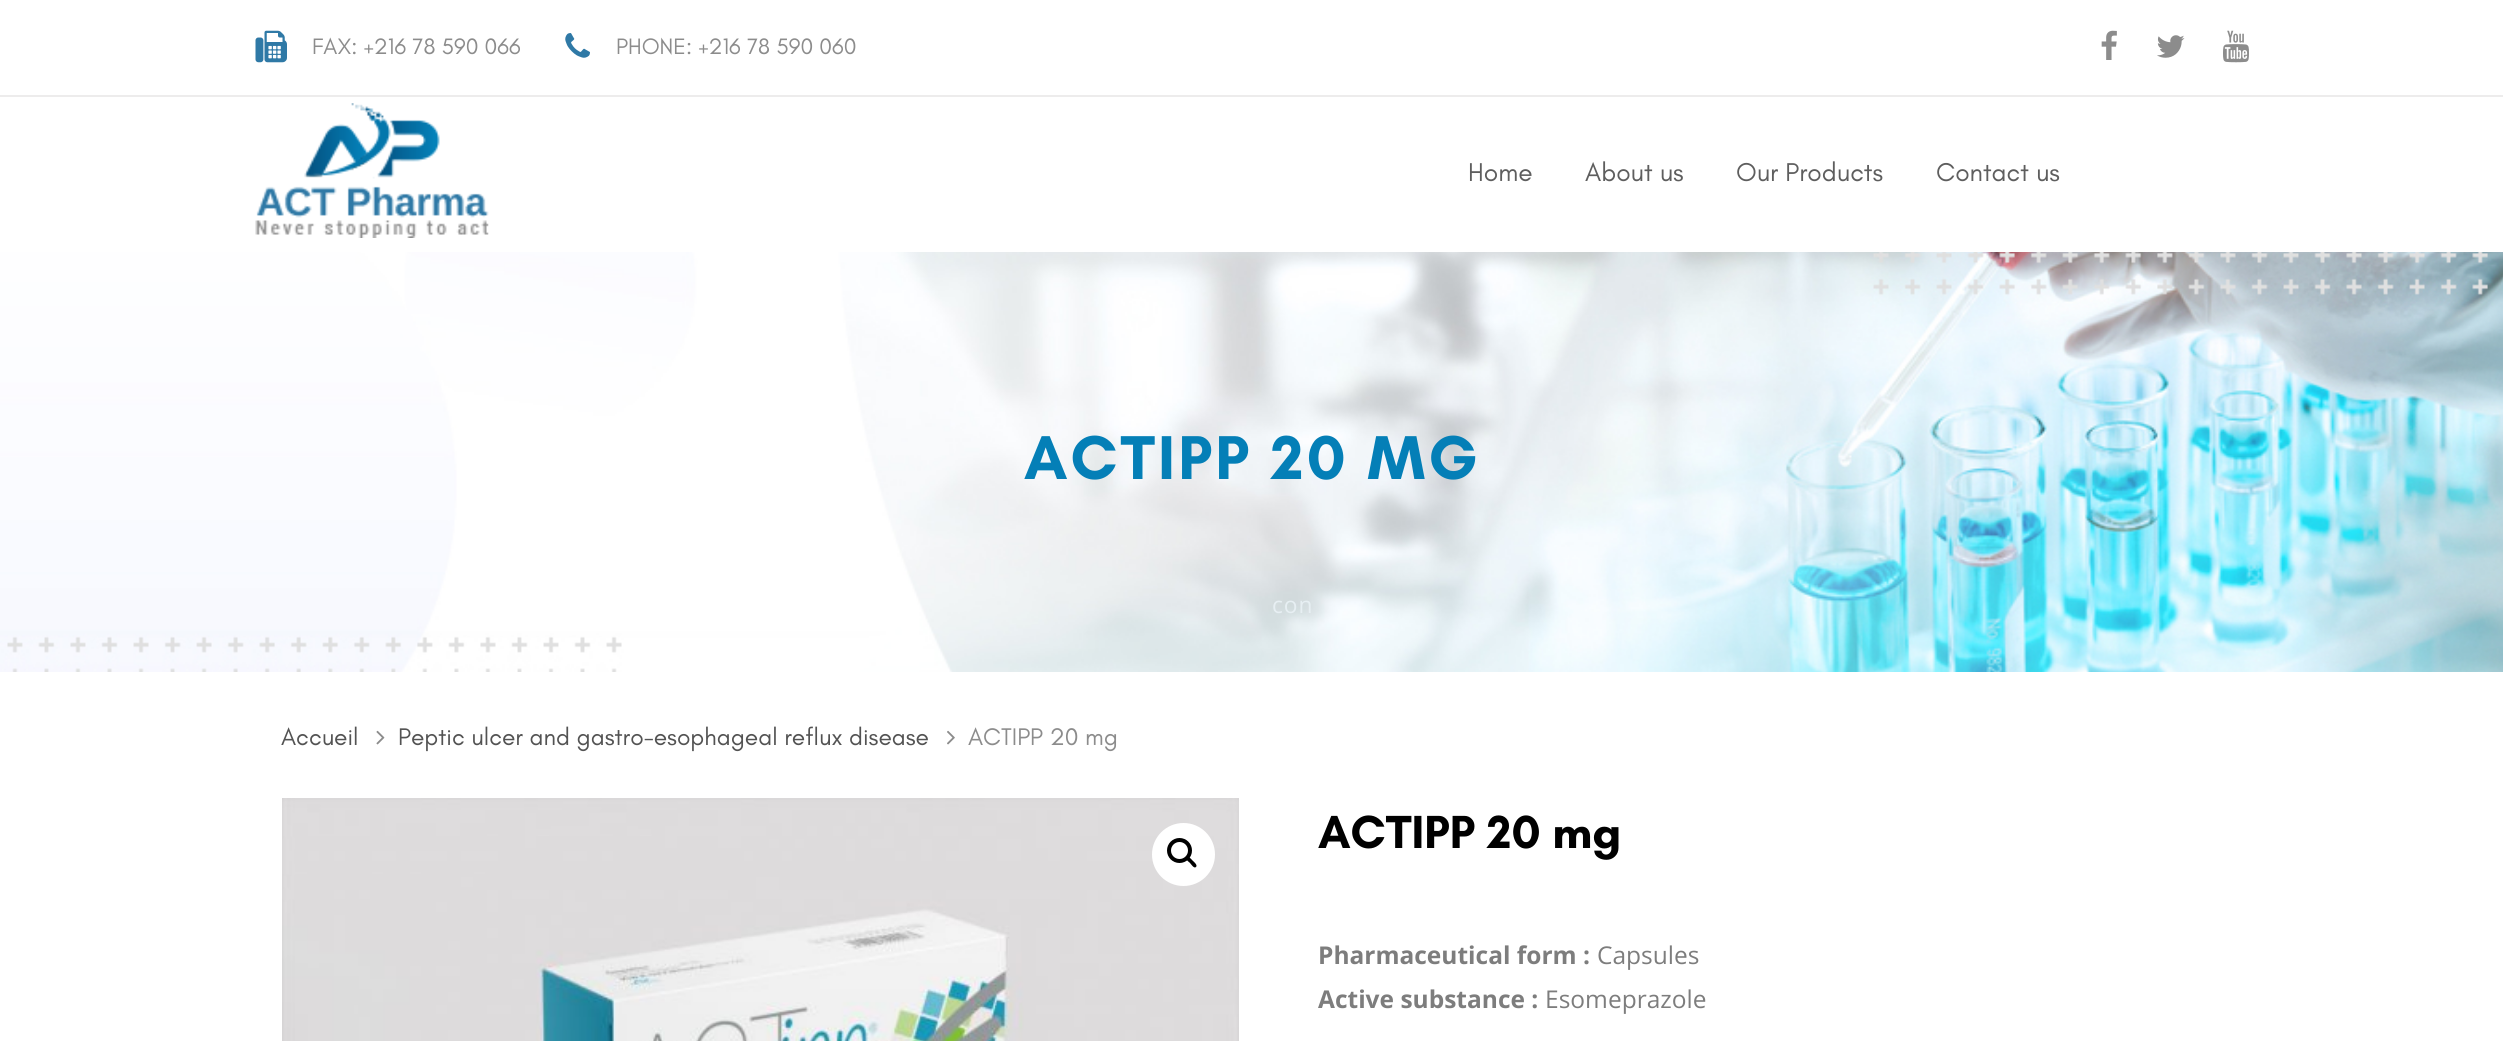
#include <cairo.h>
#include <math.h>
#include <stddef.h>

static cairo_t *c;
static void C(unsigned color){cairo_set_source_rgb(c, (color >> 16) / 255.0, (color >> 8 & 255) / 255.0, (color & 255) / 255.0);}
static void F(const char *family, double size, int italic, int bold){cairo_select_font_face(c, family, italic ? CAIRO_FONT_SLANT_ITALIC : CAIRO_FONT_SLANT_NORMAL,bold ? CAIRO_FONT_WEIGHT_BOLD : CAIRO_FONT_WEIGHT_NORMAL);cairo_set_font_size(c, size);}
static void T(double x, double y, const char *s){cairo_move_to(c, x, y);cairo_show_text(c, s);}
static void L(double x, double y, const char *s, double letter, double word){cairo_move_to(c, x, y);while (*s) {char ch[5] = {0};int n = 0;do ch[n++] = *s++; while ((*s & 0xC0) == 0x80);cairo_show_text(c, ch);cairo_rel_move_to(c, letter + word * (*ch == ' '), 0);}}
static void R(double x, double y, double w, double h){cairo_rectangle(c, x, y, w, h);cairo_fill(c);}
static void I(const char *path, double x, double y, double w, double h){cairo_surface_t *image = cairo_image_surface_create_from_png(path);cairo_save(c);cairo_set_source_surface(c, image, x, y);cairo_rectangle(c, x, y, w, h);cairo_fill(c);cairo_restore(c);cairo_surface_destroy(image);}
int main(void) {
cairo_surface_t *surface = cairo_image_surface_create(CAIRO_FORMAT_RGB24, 2503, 1041);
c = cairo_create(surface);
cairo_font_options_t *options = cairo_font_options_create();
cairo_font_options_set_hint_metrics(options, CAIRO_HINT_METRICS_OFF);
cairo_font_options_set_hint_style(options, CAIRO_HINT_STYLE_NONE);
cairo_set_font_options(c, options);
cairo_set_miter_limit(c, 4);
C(0xffffff);
cairo_paint(c);
C(0xedecec);
R(0,95,2503,2);
I("1.png",255,30,32,33);
F("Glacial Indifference",22.75,0,0);
C(0x8c8c8c);
T(312,54,"FAX: +216 78 590 066");
I("2.png",565,33,25,25);
T(616,54,"PHONE: +216 78 590 060");
I("3.png",2101,30,16,30);
I("4.png",2157,35,28,23);
I("5.png",2223,30,26,33);
I("6.png",255,103,234,135);
F("Glacial Indifference",26.25,0,0);
C(0x5e5e5e);
T(1468,181,"Home");
T(1585,181,"About us");
T(1736,181,"Our Products");
T(1936,181,"Contact us");
I("7.png",0,252,2503,420);
F("Glacial Indifference",63,0,1);
C(0x047fb7);
L(1024,479,"ACTIPP 20 MG",3.1,0);
F("Glacial Indifference",24.5,0,0);
C(0x535353);
T(281,745,"Accueil");
I("8.png",376,730,9,15);
T(398,745,"Peptic ulcer and gastro-esophageal reflux disease");
I("9.png",947,730,8,15);
C(0x8c8c8c);
T(968,745,"ACTIPP 20 mg");
I("10.png",282,798,957,243);
C(0xffffff);
cairo_arc(c,1183.5,854.5,31.5,0,2 * M_PI);
cairo_fill(c);
cairo_arc(c,1179.5,850.5,10.5,0,2 * M_PI);
C(0x000000);
cairo_set_line_width(c,4);
cairo_stroke(c);
cairo_new_path(c);
cairo_move_to(c,1186.5,857);
cairo_curve_to(c,1188,855,1191.5,859.5,1192.5,860.5);
cairo_curve_to(c,1193.5,861.5,1198,865,1196,867);
cairo_curve_to(c,1194,869,1191,864,1190,863);
cairo_curve_to(c,1189,862,1184.5,859,1186.5,857);
cairo_close_path(c);
cairo_fill(c);
F("Glacial Indifference",47.25,0,1);
T(1318,848,"ACTIPP 20 mg");
F("Open Sans",24.5,0,1);
C(0x7d7d7d);
T(1318,964,"Pharmaceutical form :");
F("Open Sans",24.5,0,0);
T(1597,964,"Capsules");
F("Open Sans",24.5,0,1);
T(1318,1008,"Active substance :");
F("Open Sans",24.5,0,0);
T(1545,1008,"Esomeprazole");
F("Open Sans",22.75,0,0);
C(0xe7eff3);
L(1272,613,"con",1,0);
cairo_surface_write_to_png(surface, "o.png");
cairo_font_options_destroy(options);
cairo_destroy(c);
cairo_surface_destroy(surface);
return 0;
}
